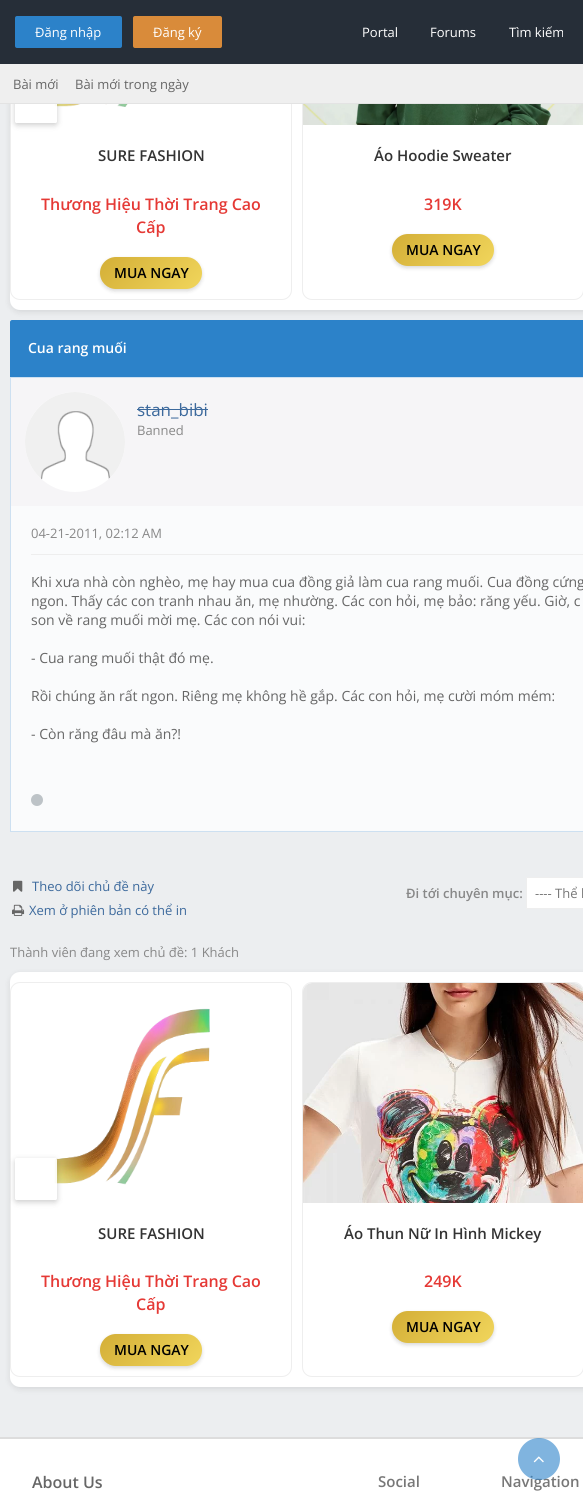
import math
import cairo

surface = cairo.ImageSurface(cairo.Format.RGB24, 583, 1497)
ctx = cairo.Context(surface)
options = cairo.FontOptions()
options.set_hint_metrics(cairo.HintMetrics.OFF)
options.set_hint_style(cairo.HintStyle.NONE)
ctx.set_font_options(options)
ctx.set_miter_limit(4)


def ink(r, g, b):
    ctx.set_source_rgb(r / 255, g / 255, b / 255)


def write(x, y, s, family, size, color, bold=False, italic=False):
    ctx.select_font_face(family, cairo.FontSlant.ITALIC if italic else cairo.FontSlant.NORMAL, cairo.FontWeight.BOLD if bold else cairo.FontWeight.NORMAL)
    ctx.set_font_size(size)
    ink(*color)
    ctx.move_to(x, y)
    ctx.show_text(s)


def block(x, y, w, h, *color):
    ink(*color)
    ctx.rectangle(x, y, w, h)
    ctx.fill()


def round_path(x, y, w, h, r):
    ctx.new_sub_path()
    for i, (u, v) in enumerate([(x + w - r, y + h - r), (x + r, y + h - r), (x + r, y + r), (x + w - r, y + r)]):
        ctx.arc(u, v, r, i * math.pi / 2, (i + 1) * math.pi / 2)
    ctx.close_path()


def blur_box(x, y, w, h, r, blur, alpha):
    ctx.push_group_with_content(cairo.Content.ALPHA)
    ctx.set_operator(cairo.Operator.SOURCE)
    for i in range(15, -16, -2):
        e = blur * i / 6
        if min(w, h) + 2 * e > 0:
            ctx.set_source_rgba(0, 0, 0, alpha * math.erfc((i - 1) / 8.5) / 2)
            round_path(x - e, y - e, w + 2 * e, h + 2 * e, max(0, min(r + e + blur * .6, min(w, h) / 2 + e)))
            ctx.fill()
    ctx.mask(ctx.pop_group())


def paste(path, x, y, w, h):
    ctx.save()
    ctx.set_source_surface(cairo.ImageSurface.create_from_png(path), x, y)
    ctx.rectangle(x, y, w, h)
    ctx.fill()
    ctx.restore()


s1 = dict(family="Open Sans", size=13, color=(255, 255, 255))
s2 = dict(family="Open Sans", size=13, color=(102, 102, 102))
s3 = dict(family="Open Sans SemiBold", size=15, color=(51, 51, 51))
s4 = dict(family="Open Sans SemiBold", size=16, color=(229, 57, 53))
s5 = dict(family="Open Sans SemiBold", size=14, color=(0, 0, 0))
s6 = dict(family="Open Sans SemiBold", size=14, color=(255, 255, 255))
s7 = dict(family="Open Sans", size=17, color=(60, 105, 156))
s8 = dict(family="Open Sans", size=13, color=(136, 136, 136))
s9 = dict(family="Open Sans", size=14, color=(102, 102, 102))
s10 = dict(family="Open Sans", size=13, color=(60, 105, 156))
s11 = dict(family="Open Sans SemiBold", size=13, color=(136, 136, 136))
s12 = dict(family="Open Sans", size=13, color=(119, 119, 119))
s13 = dict(family="Open Sans SemiBold", size=15, color=(119, 119, 119))
s14 = dict(family="Open Sans SemiBold", size=16, color=(102, 102, 102))

ink(236, 238, 240)
ctx.paint()
ink(44, 130, 201)
ctx.new_path()
ctx.move_to(12, 320)
ctx.line_to(583, 320)
ctx.curve_to(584, 320, 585, 321, 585, 322)
ctx.line_to(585, 377)
ctx.line_to(10, 377)
ctx.line_to(10, 322)
ctx.curve_to(10, 321, 11, 320, 12, 320)
ctx.close_path()
ctx.fill()
ink(0, 0, 0)
blur_box(10, -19, 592, 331, 10, 3, 0.1)
ink(255, 255, 255)
round_path(10, -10, 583, 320, 10)
ctx.fill()
round_path(10.5, -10.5, 281, 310, 9.5)
ink(238, 238, 238)
ctx.set_line_width(1)
ctx.stroke()
round_path(302.5, -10.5, 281, 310, 9.5)
ctx.stroke()
block(0, 0, 583, 64, 38, 46, 56)
ink(44, 130, 201)
round_path(15, 16, 107, 32, 2)
ctx.fill()
write(35, 37, "Đăng nhập", **s1)
ink(217, 139, 58)
round_path(133, 16, 89, 32, 2)
ctx.fill()
write(153, 37, "Đăng ký", **s1)
write(362, 37, "Portal", **s1)
write(430, 37, "Forums", **s1)
write(509, 37, "Tìm kiếm", **s1)
paste("pic1.png", 54, 104, 74, 3)
ctx.save()
ctx.set_fill_rule(cairo.FillRule.EVEN_ODD)
ctx.new_path()
ctx.move_to(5, 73)
ctx.line_to(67, 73)
ctx.line_to(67, 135)
ctx.line_to(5, 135)
ctx.close_path()
ctx.move_to(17, 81)
ctx.line_to(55, 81)
ctx.curve_to(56, 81, 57, 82, 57, 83)
ctx.line_to(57, 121)
ctx.curve_to(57, 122, 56, 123, 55, 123)
ctx.line_to(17, 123)
ctx.curve_to(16, 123, 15, 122, 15, 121)
ctx.line_to(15, 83)
ctx.curve_to(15, 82, 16, 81, 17, 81)
ctx.close_path()
ctx.clip()
ink(0, 0, 0)
blur_box(15, 83, 42, 42, 2, 3, 0.2)
ctx.restore()
ctx.set_source_rgba(1, 1, 1, 0.9)
round_path(15, 81, 42, 42, 2)
ctx.fill()
block(0, 64, 583, 39, 239, 239, 239)
block(0, 103, 583, 1, 227, 227, 227)
write(13, 89, "Bài mới", **s2)
write(75, 89, "Bài mới trong ngày", **s2)
write(98, 161, "SURE FASHION", **s3)
write(41, 210, "Thương Hiệu Thời Trang Cao", **s4)
write(136, 233, "Cấp", **s4)
ink(0, 0, 0)
blur_box(100, 259, 102, 32, 16, 2, 0.15)
gradient = cairo.LinearGradient(118, 240, 185, 307)
gradient.add_color_stop_rgba(0, 0.831, 0.686, 0.216, 1)
gradient.add_color_stop_rgba(1, 0.945, 0.839, 0.361, 1)
ctx.set_source(gradient)
round_path(100, 257, 102, 32, 16)
ctx.fill()
write(114, 278, "MUA NGAY", **s5)
paste("pic2.png", 303, 104, 280, 21)
write(374, 161, "Áo Hoodie Sweater", **s3)
write(424, 210, "319K", **s4)
ink(0, 0, 0)
blur_box(392, 236, 102, 32, 16, 2, 0.15)
gradient = cairo.LinearGradient(410, 217, 477, 284)
gradient.add_color_stop_rgba(0, 0.831, 0.686, 0.216, 1)
gradient.add_color_stop_rgba(1, 0.945, 0.839, 0.361, 1)
ctx.set_source(gradient)
round_path(392, 234, 102, 32, 16)
ctx.fill()
write(406, 255, "MUA NGAY", **s5)
write(28, 353, "Cua rang muối", **s6)
block(11, 506, 572, 325, 250, 251, 252)
ctx.rectangle(10.5, 377.5, 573, 454)
ink(205, 224, 241)
ctx.stroke()
block(11, 378, 572, 128, 246, 245, 247)
ink(255, 255, 255)
ctx.arc(75, 442, 50, 0, 2 * math.pi)
ctx.fill()
paste("pic3.png", 25, 392, 100, 88)
write(137, 416, "stan_bibi", **s7)
block(137, 409, 71, 1, 60, 105, 156)
write(137, 435, "Banned", **s8)
block(31, 554, 552, 1, 238, 238, 238)
write(31, 538, "04-21-2011, 02:12 AM", **s8)
write(31, 587, "Khi xưa nhà còn nghèo, mẹ hay mua cua đồng giả làm cua rang muối. Cua đồng cứng", **s9)
write(31, 606, "ngon. Thấy các con tranh nhau ăn, mẹ nhường. Các con hỏi, mẹ bảo: răng yếu. Giờ, c", **s9)
write(31, 625, "son về rang muối mời mẹ. Các con nói vui:", **s9)
write(31, 663, "- Cua rang muối thật đó mẹ.", **s9)
write(31, 701, "Rồi chúng ăn rất ngon. Riêng mẹ không hề gắp. Các con hỏi, mẹ cười móm mém:", **s9)
write(31, 739, "- Còn răng đâu mà ăn?!", **s9)
ink(189, 195, 199)
ctx.new_path()
ctx.arc(37, 800, 6, 0, 2 * math.pi)
ctx.fill()
paste("pic4.png", 13, 880, 10, 12)
write(32, 891, "Theo dõi chủ đề này", **s10)
paste("pic5.png", 12, 904, 13, 12)
write(29, 915, "Xem ở phiên bản có thể in", **s10)
write(406, 898, "Đi tới chuyên mục:", **s11)
ink(255, 255, 255)
round_path(526.5, 877.5, 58, 31, 0.5)
ctx.fill_preserve()
ink(238, 238, 238)
ctx.stroke()
write(535, 898, "---- Thể l", **s12)
write(10, 957, "Thành viên đang xem chủ đề: 1 Khách", **s8)
ink(0, 0, 0)
blur_box(10, 974, 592, 415, 10, 3, 0.1)
ink(255, 255, 255)
round_path(10, 972, 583, 415, 10)
ctx.fill()
round_path(10.5, 982.5, 281, 394, 9.5)
ink(238, 238, 238)
ctx.stroke()
paste("pic6.png", 54, 1008, 156, 177)
ctx.save()
ctx.set_fill_rule(cairo.FillRule.EVEN_ODD)
ctx.new_path()
ctx.move_to(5, 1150)
ctx.line_to(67, 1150)
ctx.line_to(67, 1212)
ctx.line_to(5, 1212)
ctx.close_path()
ctx.move_to(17, 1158)
ctx.line_to(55, 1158)
ctx.curve_to(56, 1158, 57, 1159, 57, 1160)
ctx.line_to(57, 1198)
ctx.curve_to(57, 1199, 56, 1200, 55, 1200)
ctx.line_to(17, 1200)
ctx.curve_to(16, 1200, 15, 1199, 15, 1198)
ctx.line_to(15, 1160)
ctx.curve_to(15, 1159, 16, 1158, 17, 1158)
ctx.close_path()
ctx.clip()
ink(0, 0, 0)
blur_box(15, 1160, 42, 42, 2, 3, 0.2)
ctx.restore()
ctx.set_source_rgba(1, 1, 1, 0.9)
round_path(15, 1158, 42, 42, 2)
ctx.fill()
write(98, 1239, "SURE FASHION", **s3)
write(41, 1287, "Thương Hiệu Thời Trang Cao", **s4)
write(136, 1310, "Cấp", **s4)
ink(0, 0, 0)
blur_box(100, 1336, 102, 32, 16, 2, 0.15)
gradient = cairo.LinearGradient(118, 1317, 185, 1384)
gradient.add_color_stop_rgba(0, 0.831, 0.686, 0.216, 1)
gradient.add_color_stop_rgba(1, 0.945, 0.839, 0.361, 1)
ctx.set_source(gradient)
round_path(100, 1334, 102, 32, 16)
ctx.fill()
write(114, 1355, "MUA NGAY", **s5)
round_path(302.5, 982.5, 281, 394, 9.5)
ink(238, 238, 238)
ctx.stroke()
paste("pic7.png", 303, 983, 280, 220)
write(344, 1239, "Áo Thun Nữ In Hình Mickey", **s3)
write(424, 1287, "249K", **s4)
ink(0, 0, 0)
blur_box(392, 1313, 102, 32, 16, 2, 0.15)
gradient = cairo.LinearGradient(410, 1294, 477, 1361)
gradient.add_color_stop_rgba(0, 0.831, 0.686, 0.216, 1)
gradient.add_color_stop_rgba(1, 0.945, 0.839, 0.361, 1)
ctx.set_source(gradient)
round_path(392, 1311, 102, 32, 16)
ctx.fill()
write(406, 1332, "MUA NGAY", **s5)
block(0, 1439, 583, 58, 255, 255, 255)
block(0, 1437, 583, 2, 221, 221, 221)
write(501, 1487, "Navigation", **s13)
ctx.set_source_rgba(0.173, 0.51, 0.788, 0.6)
ctx.new_path()
ctx.arc(539, 1459, 21, 0, 2 * math.pi)
ctx.fill()
paste("pic8.png", 533, 1456, 11, 7)
write(32, 1488, "About Us", **s14)
write(378, 1487, "Social", **s13)
surface.write_to_png("screenshot.png")
